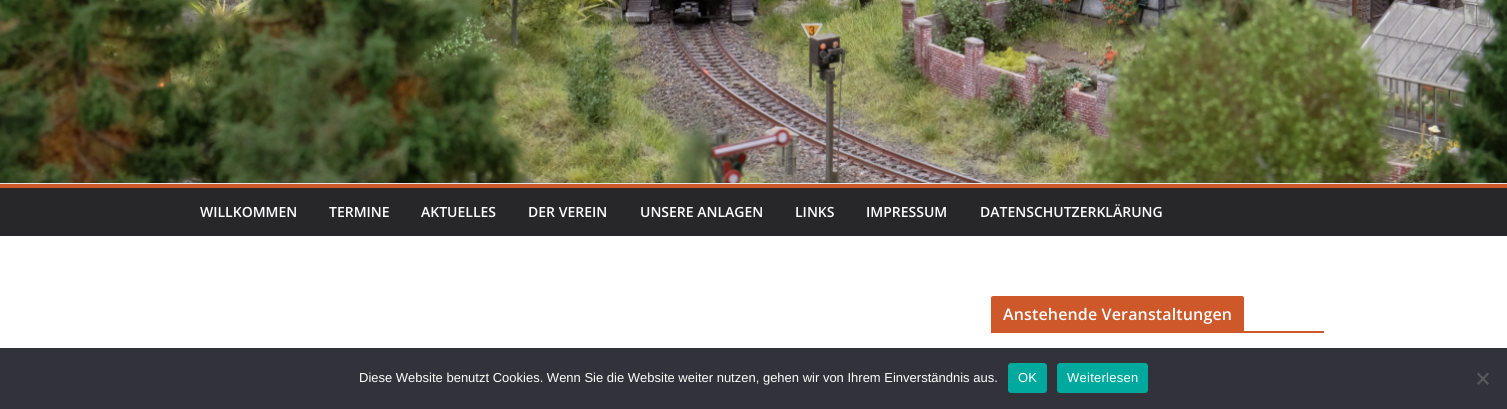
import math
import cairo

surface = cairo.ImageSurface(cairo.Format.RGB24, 1507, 409)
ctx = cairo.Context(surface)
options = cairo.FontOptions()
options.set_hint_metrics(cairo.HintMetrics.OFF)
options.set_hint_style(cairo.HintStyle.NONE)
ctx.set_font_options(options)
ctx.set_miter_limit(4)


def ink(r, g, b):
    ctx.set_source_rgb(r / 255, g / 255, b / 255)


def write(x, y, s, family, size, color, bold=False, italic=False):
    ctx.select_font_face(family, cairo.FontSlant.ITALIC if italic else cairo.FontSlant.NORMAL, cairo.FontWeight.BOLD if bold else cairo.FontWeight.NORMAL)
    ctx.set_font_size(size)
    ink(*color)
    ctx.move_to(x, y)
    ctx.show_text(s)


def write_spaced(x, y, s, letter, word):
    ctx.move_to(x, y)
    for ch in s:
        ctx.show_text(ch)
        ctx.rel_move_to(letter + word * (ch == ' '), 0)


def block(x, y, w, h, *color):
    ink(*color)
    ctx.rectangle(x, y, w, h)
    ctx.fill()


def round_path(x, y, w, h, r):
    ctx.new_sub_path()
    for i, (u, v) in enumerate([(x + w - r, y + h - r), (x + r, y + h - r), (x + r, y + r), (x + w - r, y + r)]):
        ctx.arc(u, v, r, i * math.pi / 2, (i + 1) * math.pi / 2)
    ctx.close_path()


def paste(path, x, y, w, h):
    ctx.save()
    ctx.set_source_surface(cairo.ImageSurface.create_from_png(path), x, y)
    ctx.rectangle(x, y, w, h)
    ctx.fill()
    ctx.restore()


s1 = dict(family="Open Sans SemiBold", size=14, color=(255, 255, 255))
s2 = dict(family="Liberation Sans", size=13, color=(255, 255, 255))

ink(255, 255, 255)
ctx.paint()
paste("pic1.png", 0, 0, 1507, 183)
block(0, 183, 1507, 1, 228, 228, 231)
block(0, 188, 1507, 48, 39, 39, 42)
block(0, 184, 1507, 4, 206, 88, 41)
write(200, 217, "WILLKOMMEN", **s1)
write(329, 217, "TERMINE", **s1)
write(421, 217, "AKTUELLES", **s1)
write(528, 217, "DER VEREIN", **s1)
write(640, 217, "UNSERE ANLAGEN", **s1)
write(795, 217, "LINKS", **s1)
write(866, 217, "IMPRESSUM", **s1)
write(980, 217, "DATENSCHUTZERKLÄRUNG", **s1)
block(991, 331, 333, 2, 206, 88, 41)
ctx.new_path()
ctx.move_to(993, 296)
ctx.line_to(1242, 296)
ctx.curve_to(1243, 296, 1244, 297, 1244, 298)
ctx.line_to(1244, 331)
ctx.line_to(991, 331)
ctx.line_to(991, 298)
ctx.curve_to(991, 297, 992, 296, 993, 296)
ctx.close_path()
ctx.fill()
ctx.set_font_size(16)
ink(255, 255, 255)
write_spaced(1003, 320, "Anstehende Veranstaltungen", 0.15, 0)
block(0, 348, 1507, 61, 50, 50, 58)
write(359, 382, "Diese Website benutzt Cookies. Wenn Sie die Website weiter nutzen, gehen wir von Ihrem Einverständnis aus.", **s2)
ink(0, 169, 157)
round_path(1008, 363, 39, 30, 3)
ctx.fill()
ink(255, 255, 255)
write_spaced(1018, 382, "OK", 0.25, 0)
ink(0, 169, 157)
round_path(1057, 363, 91, 30, 3)
ctx.fill()
ink(255, 255, 255)
write_spaced(1067, 382, "Weiterlesen", 0.25, 0)
ink(89, 89, 93)
ctx.new_path()
ctx.move_to(1487.5, 372.5)
ctx.line_to(1489, 374)
ctx.line_to(1478.5, 385)
ctx.line_to(1477, 383.5)
ctx.close_path()
ctx.fill()
ctx.new_path()
ctx.move_to(1477, 374)
ctx.line_to(1478.5, 372.5)
ctx.line_to(1489, 383.5)
ctx.line_to(1487.5, 385)
ctx.close_path()
ctx.fill()
surface.write_to_png("screenshot.png")
